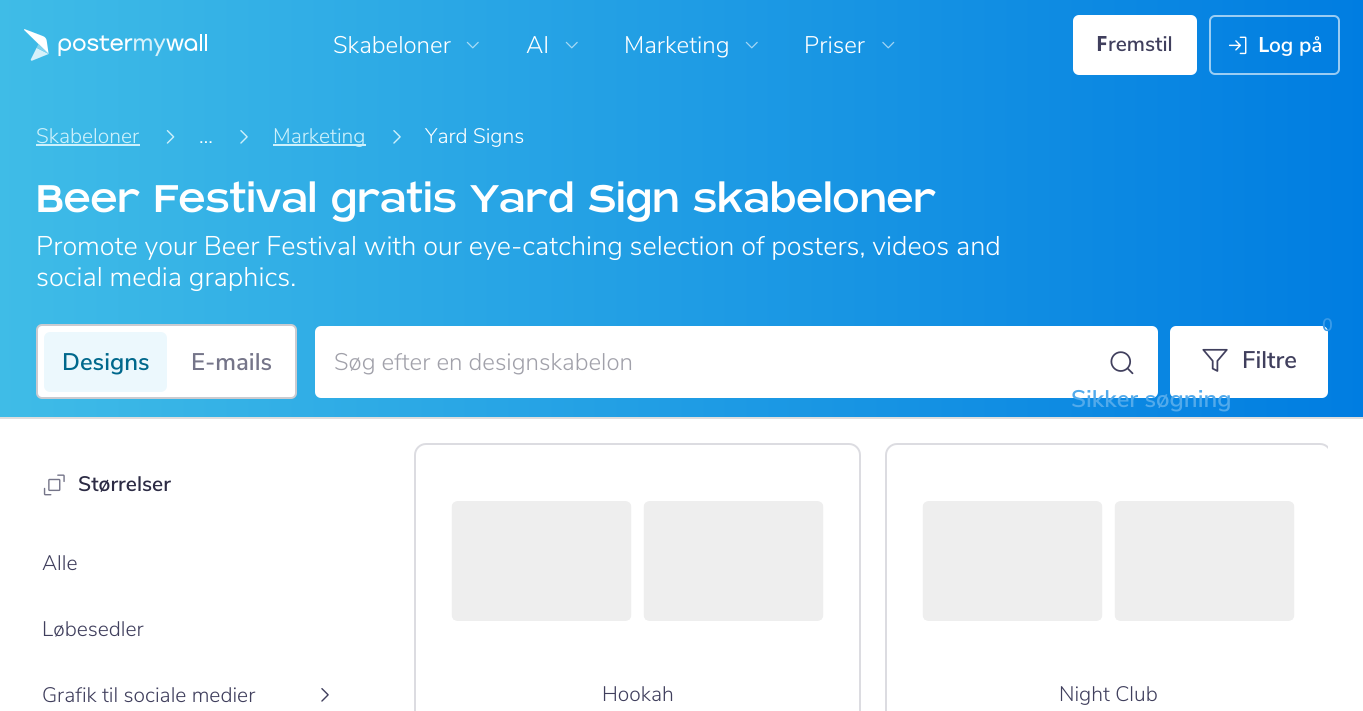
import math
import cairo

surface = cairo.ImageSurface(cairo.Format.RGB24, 1363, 711)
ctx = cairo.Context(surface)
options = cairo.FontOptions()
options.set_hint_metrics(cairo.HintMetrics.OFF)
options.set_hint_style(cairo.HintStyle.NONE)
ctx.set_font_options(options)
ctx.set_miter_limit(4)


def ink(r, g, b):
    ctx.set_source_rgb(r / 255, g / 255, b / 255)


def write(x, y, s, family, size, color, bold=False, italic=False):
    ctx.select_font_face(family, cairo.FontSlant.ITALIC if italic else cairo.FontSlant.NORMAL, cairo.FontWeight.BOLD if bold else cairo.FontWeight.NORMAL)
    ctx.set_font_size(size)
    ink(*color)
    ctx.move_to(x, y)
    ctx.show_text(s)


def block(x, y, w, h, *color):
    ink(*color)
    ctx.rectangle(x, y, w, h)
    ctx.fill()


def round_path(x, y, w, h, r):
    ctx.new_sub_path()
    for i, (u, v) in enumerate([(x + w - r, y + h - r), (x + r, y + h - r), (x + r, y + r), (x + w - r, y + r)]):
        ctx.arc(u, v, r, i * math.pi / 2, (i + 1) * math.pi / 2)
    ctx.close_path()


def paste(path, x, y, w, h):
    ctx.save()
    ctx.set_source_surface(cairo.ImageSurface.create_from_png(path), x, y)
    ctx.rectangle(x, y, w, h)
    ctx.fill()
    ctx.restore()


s1 = dict(family="Nunito Sans Light", size=24, color=(255, 255, 255))
s2 = dict(family="Noto Sans", size=21, color=(64, 63, 93), bold=True)
s3 = dict(family="Nunito Sans SemiBold", size=21, color=(64, 63, 93))
s4 = dict(family="Noto Sans SemiBold", size=21, color=(255, 255, 255))
s5 = dict(family="Nunito Sans SemiBold", size=21, color=(255, 255, 255))
s6 = dict(family="Nunito Sans Light", size=21, color=(205, 240, 251))
s7 = dict(family="Nunito Sans Light", size=21, color=(255, 255, 255))
s8 = dict(family="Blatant", size=48, color=(255, 255, 255))
s9 = dict(family="Nunito Sans Light", size=27, color=(255, 255, 255))
s10 = dict(family="Nunito Sans SemiBold", size=24, color=(0, 104, 140))
s11 = dict(family="Nunito Sans SemiBold", size=24, color=(117, 117, 137))
s12 = dict(family="Nunito Sans Light", size=24, color=(161, 161, 170))
s13 = dict(family="Nunito Sans SemiBold", size=18, color=(58, 155, 232))
s14 = dict(family="Nunito Sans SemiBold", size=24, color=(64, 63, 93))
s15 = dict(family="Nunito Sans SemiBold", size=24, color=(82, 170, 235))
s16 = dict(family="Nunito Sans SemiBold", size=21, color=(44, 43, 68))
s17 = dict(family="Nunito Sans Light", size=21, color=(64, 63, 93))

ink(255, 255, 255)
ctx.paint()
gradient = cairo.LinearGradient(0, 45, 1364, 45)
gradient.add_color_stop_rgba(0, 0.247, 0.737, 0.906, 1)
gradient.add_color_stop_rgba(1, 0, 0.49, 0.882, 1)
ctx.set_source(gradient)
ctx.rectangle(0, 0, 1363, 90)
ctx.fill()
paste("pic1.png", 24, 29, 183, 32)
write(333, 53, "Skabeloner", **s1)
paste("pic2.png", 466, 41, 13, 8)
write(526, 53, "AI", **s1)
paste("pic3.png", 565, 41, 13, 8)
write(624, 53, "Marketing", **s1)
paste("pic4.png", 745, 41, 13, 8)
write(804, 53, "Priser", **s1)
paste("pic5.png", 882, 41, 13, 8)
round_path(1073, 15, 124, 60, 6)
ctx.fill()
write(1096, 51, "F", **s2)
write(1108, 51, "remstil", **s3)
round_path(1210, 16, 129, 58, 5)
ctx.set_source_rgba(1, 1, 1, 0.6)
ctx.stroke()
paste("pic6.png", 1228, 36, 19, 19)
write(1258, 52, "L", **s4)
write(1269, 52, "og på", **s5)
gradient = cairo.LinearGradient(0, 254, 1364, 253)
gradient.add_color_stop_rgba(0, 0.247, 0.737, 0.906, 1)
gradient.add_color_stop_rgba(1, 0, 0.49, 0.882, 1)
ctx.set_source(gradient)
ctx.rectangle(0, 90, 1363, 327)
ctx.fill()
block(0, 417, 1363, 2, 222, 222, 222)
write(36, 143, "Skabeloner", **s6)
block(36, 144, 104, 2, 205, 240, 251)
paste("pic7.png", 166, 130, 9, 14)
write(199, 143, "…", **s7)
paste("pic8.png", 240, 130, 8, 14)
block(273, 144, 93, 2, 205, 240, 251)
write(273, 143, "Marketing", **s6)
paste("pic9.png", 393, 130, 8, 14)
write(425, 143, "Yard Signs", **s7)
write(36, 212, "Beer Festival gratis Yard Sign skabeloner", **s8)
write(36, 255, "Promote your Beer Festival with our eye-catching selection of posters, videos and", **s9)
write(36, 286, "social media graphics.", **s9)
round_path(37, 325, 259, 73, 5)
ctx.fill_preserve()
ink(203, 203, 208)
ctx.stroke()
ink(236, 248, 253)
round_path(44, 332, 123, 60, 6)
ctx.fill()
write(62, 370, "Designs", **s10)
write(191, 370, "E-mails", **s11)
ink(255, 255, 255)
round_path(315, 326, 843, 72, 6)
ctx.fill()
write(334, 370, "Søg efter en designskabelon", **s12)
paste("pic10.png", 1110, 351, 24, 24)
ink(255, 255, 255)
round_path(1170, 326, 158, 72, 6)
ctx.fill()
write(1322, 331, "0", **s13)
paste("pic11.png", 1202, 348, 26, 24)
write(1242, 368, "Filtre", **s14)
write(1071, 407, "Sikker søgning", **s15)
paste("pic12.png", 43, 474, 22, 22)
write(78, 491, "Størrelser", **s16)
write(42, 570, "Alle", **s17)
write(42, 636, "Løbesedler", **s17)
write(42, 702, "Grafik til sociale medier", **s17)
paste("pic13.png", 321, 688, 8, 14)
round_path(415, 444, 445, 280, 11)
ink(220, 220, 225)
ctx.stroke()
paste("pic14.png", 451, 501, 181, 120)
paste("pic14.png", 643, 501, 181, 120)
write(602, 701, "Hookah", **s17)
ctx.save()
ctx.rectangle(414, 419, 914, 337)
ctx.clip()
round_path(886, 444, 445, 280, 11)
ink(220, 220, 225)
ctx.stroke()
ctx.restore()
paste("pic14.png", 922, 501, 181, 120)
paste("pic14.png", 1114, 501, 181, 120)
write(1059, 701, "Night Club", **s17)
surface.write_to_png("screenshot.png")
